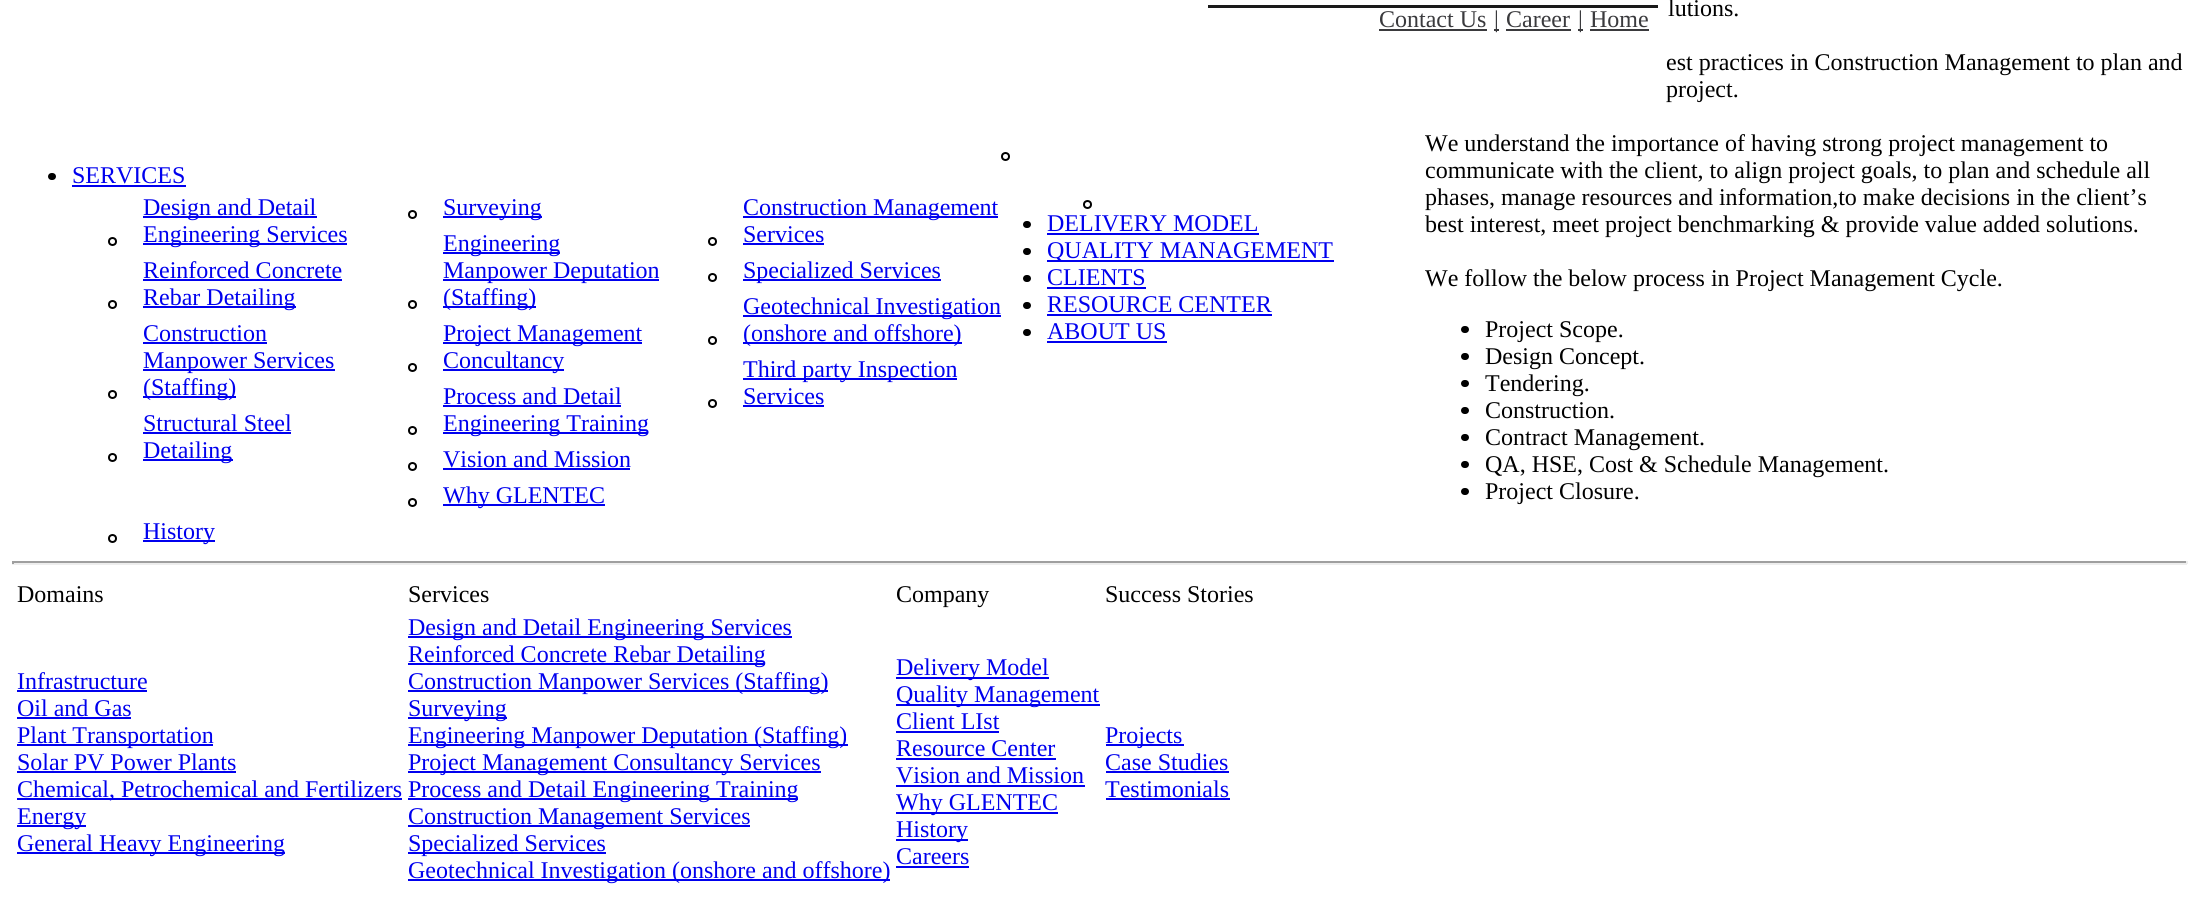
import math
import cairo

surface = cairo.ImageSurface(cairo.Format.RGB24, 2198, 898)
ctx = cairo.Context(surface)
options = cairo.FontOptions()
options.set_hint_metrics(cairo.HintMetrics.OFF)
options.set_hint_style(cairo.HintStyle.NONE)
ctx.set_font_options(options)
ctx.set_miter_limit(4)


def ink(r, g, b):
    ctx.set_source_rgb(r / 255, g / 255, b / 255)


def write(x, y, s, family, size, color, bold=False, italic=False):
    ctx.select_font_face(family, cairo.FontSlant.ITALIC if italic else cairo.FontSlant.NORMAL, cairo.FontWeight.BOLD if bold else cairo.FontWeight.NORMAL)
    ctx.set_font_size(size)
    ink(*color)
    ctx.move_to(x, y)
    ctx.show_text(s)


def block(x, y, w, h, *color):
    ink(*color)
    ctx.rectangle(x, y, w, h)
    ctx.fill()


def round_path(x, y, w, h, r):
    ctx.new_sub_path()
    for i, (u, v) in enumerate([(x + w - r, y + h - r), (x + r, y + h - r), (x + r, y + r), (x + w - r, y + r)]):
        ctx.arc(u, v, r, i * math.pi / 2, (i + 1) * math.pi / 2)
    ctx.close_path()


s1 = dict(family="Liberation Serif", size=24, color=(0, 0, 238))
s2 = dict(family="Liberation Serif", size=24, color=(0, 0, 0))
s3 = dict(family="Liberation Serif", size=24, color=(58, 58, 61))

ink(255, 255, 255)
ctx.paint()
ctx.arc(1005.5, 156.5, 3.5, 0, 2 * math.pi)
ink(0, 0, 0)
ctx.stroke()
round_path(48, 173, 8, 7, 3.5)
ctx.fill()
write(72, 183, "SERVICES", **s1)
block(72, 185, 114, 2, 0, 0, 238)
ctx.new_path()
ctx.arc(112.5, 241.5, 3.5, 0, 2 * math.pi)
ink(0, 0, 0)
ctx.stroke()
block(143, 216, 174, 2, 0, 0, 238)
write(143, 215, "Design and Detail", **s1)
block(143, 243, 204, 2, 0, 0, 238)
write(143, 242, "Engineering Services", **s1)
ctx.new_path()
ctx.arc(112.5, 304.5, 3.5, 0, 2 * math.pi)
ink(0, 0, 0)
ctx.stroke()
write(143, 278, "Reinforced Concrete", **s1)
block(143, 279, 199, 2, 0, 0, 238)
block(143, 306, 153, 2, 0, 0, 238)
write(143, 305, "Rebar Detailing", **s1)
ctx.new_path()
ctx.arc(112.5, 394.5, 3.5, 0, 2 * math.pi)
ink(0, 0, 0)
ctx.stroke()
write(143, 341, "Construction", **s1)
block(143, 342, 124, 2, 0, 0, 238)
block(143, 369, 192, 2, 0, 0, 238)
write(143, 368, "Manpower Services", **s1)
block(143, 396, 93, 2, 0, 0, 238)
write(143, 395, "(Staffing)", **s1)
ctx.new_path()
ctx.arc(112.5, 457.5, 3.5, 0, 2 * math.pi)
ink(0, 0, 0)
ctx.stroke()
write(143, 431, "Structural Steel", **s1)
block(143, 432, 148, 2, 0, 0, 238)
block(143, 459, 90, 2, 0, 0, 238)
write(143, 458, "Detailing", **s1)
ctx.new_path()
ctx.arc(412.5, 214.5, 3.5, 0, 2 * math.pi)
ink(0, 0, 0)
ctx.stroke()
block(443, 216, 99, 2, 0, 0, 238)
write(443, 215, "Surveying", **s1)
ctx.new_path()
ctx.arc(412.5, 304.5, 3.5, 0, 2 * math.pi)
ink(0, 0, 0)
ctx.stroke()
block(443, 252, 117, 2, 0, 0, 238)
write(443, 251, "Engineering", **s1)
block(443, 279, 216, 2, 0, 0, 238)
write(443, 278, "Manpower Deputation", **s1)
block(443, 306, 93, 2, 0, 0, 238)
write(443, 305, "(Staffing)", **s1)
ctx.new_path()
ctx.arc(412.5, 367.5, 3.5, 0, 2 * math.pi)
ink(0, 0, 0)
ctx.stroke()
block(443, 342, 199, 2, 0, 0, 238)
write(443, 341, "Project Management", **s1)
block(443, 369, 121, 2, 0, 0, 238)
write(443, 368, "Concultancy", **s1)
ctx.new_path()
ctx.arc(412.5, 430.5, 3.5, 0, 2 * math.pi)
ink(0, 0, 0)
ctx.stroke()
write(443, 404, "Process and Detail", **s1)
block(443, 405, 178, 2, 0, 0, 238)
block(443, 432, 205, 2, 0, 0, 238)
write(443, 431, "Engineering Training", **s1)
ctx.new_path()
ctx.arc(712.5, 241.5, 3.5, 0, 2 * math.pi)
ink(0, 0, 0)
ctx.stroke()
block(743, 216, 255, 2, 0, 0, 238)
write(743, 215, "Construction Management", **s1)
write(743, 242, "Services", **s1)
block(743, 243, 81, 2, 0, 0, 238)
ctx.new_path()
ctx.arc(712.5, 277.5, 3.5, 0, 2 * math.pi)
ink(0, 0, 0)
ctx.stroke()
block(743, 279, 198, 2, 0, 0, 238)
write(743, 278, "Specialized Services", **s1)
ctx.new_path()
ctx.arc(712.5, 340.5, 3.5, 0, 2 * math.pi)
ink(0, 0, 0)
ctx.stroke()
block(743, 315, 258, 2, 0, 0, 238)
write(743, 314, "Geotechnical Investigation", **s1)
block(743, 342, 219, 2, 0, 0, 238)
write(743, 341, "(onshore and offshore)", **s1)
ctx.new_path()
ctx.arc(712.5, 403.5, 3.5, 0, 2 * math.pi)
ink(0, 0, 0)
ctx.stroke()
block(743, 378, 214, 2, 0, 0, 238)
write(743, 377, "Third party Inspection", **s1)
write(743, 404, "Services", **s1)
block(743, 405, 81, 2, 0, 0, 238)
ctx.new_path()
ctx.arc(1087.5, 204.5, 3.5, 0, 2 * math.pi)
ink(0, 0, 0)
ctx.stroke()
round_path(1023, 221, 8, 7, 3.5)
ctx.fill()
write(1047, 231, "DELIVERY MODEL", **s1)
block(1047, 233, 212, 2, 0, 0, 238)
ink(0, 0, 0)
round_path(1023, 248, 8, 7, 3.5)
ctx.fill()
block(1047, 260, 287, 2, 0, 0, 238)
write(1047, 258, "QUALITY MANAGEMENT", **s1)
ink(0, 0, 0)
round_path(1023, 275, 8, 7, 3.5)
ctx.fill()
write(1047, 285, "CLIENTS", **s1)
block(1047, 287, 99, 2, 0, 0, 238)
ink(0, 0, 0)
round_path(1023, 302, 8, 7, 3.5)
ctx.fill()
write(1047, 312, "RESOURCE CENTER", **s1)
block(1047, 314, 225, 2, 0, 0, 238)
ink(0, 0, 0)
round_path(1023, 329, 8, 7, 3.5)
ctx.fill()
write(1047, 339, "ABOUT US", **s1)
block(1047, 341, 120, 2, 0, 0, 238)
ctx.new_path()
ctx.arc(412.5, 466.5, 3.5, 0, 2 * math.pi)
ink(0, 0, 0)
ctx.stroke()
write(443, 467, "Vision and Mission", **s1)
block(443, 468, 187, 2, 0, 0, 238)
ctx.new_path()
ctx.arc(412.5, 502.5, 3.5, 0, 2 * math.pi)
ink(0, 0, 0)
ctx.stroke()
block(443, 504, 162, 2, 0, 0, 238)
write(443, 503, "Why GLENTEC", **s1)
ctx.new_path()
ctx.arc(112.5, 538.5, 3.5, 0, 2 * math.pi)
ink(0, 0, 0)
ctx.stroke()
block(143, 540, 72, 2, 0, 0, 238)
write(143, 539, "History", **s1)
write(1668, 16, "lutions.", **s2)
write(1666, 70, "est practices in Construction Management to plan and", **s2)
write(1666, 97, "project.", **s2)
write(1425, 151, "We understand the importance of having strong project management to", **s2)
write(1425, 178, "communicate with the client, to align project goals, to plan and schedule all", **s2)
write(1425, 205, "phases, manage resources and information,to make decisions in the client’s", **s2)
write(1425, 232, "best interest, meet project benchmarking & provide value added solutions.", **s2)
write(1425, 286, "We follow the below process in Project Management Cycle.", **s2)
round_path(1461, 326, 8, 7, 3.5)
ctx.fill()
write(1485, 337, "Project Scope.", **s2)
round_path(1461, 353, 8, 7, 3.5)
ctx.fill()
write(1485, 364, "Design Concept.", **s2)
round_path(1461, 380, 8, 7, 3.5)
ctx.fill()
write(1485, 391, "Tendering.", **s2)
round_path(1461, 407, 8, 7, 3.5)
ctx.fill()
write(1485, 418, "Construction.", **s2)
round_path(1461, 434, 8, 7, 3.5)
ctx.fill()
write(1485, 445, "Contract Management.", **s2)
round_path(1461, 461, 8, 7, 3.5)
ctx.fill()
write(1485, 472, "QA, HSE, Cost & Schedule Management.", **s2)
round_path(1461, 488, 8, 7, 3.5)
ctx.fill()
write(1485, 499, "Project Closure.", **s2)
block(1208, 5, 450, 3, 26, 26, 26)
write(1379, 27, "Contact Us", **s3)
block(1379, 29, 108, 2, 58, 58, 61)
block(1494, 29, 5, 2, 58, 58, 61)
write(1494, 27, "|", **s3)
write(1506, 27, "Career", **s3)
block(1506, 29, 65, 2, 58, 58, 61)
block(1578, 29, 5, 2, 58, 58, 61)
write(1578, 27, "|", **s3)
write(1590, 27, "Home", **s3)
block(1590, 29, 59, 2, 58, 58, 61)
block(12, 561, 2175, 2, 159, 159, 159)
block(2186, 561, 2, 3, 238, 238, 238)
block(12, 563, 2175, 2, 238, 238, 238)
block(12, 561, 2, 3, 159, 159, 159)
write(17, 602, "Domains", **s2)
write(408, 602, "Services", **s2)
write(896, 602, "Company", **s2)
write(1105, 602, "Success Stories", **s2)
write(17, 689, "Infrastructure", **s1)
block(17, 690, 130, 2, 0, 0, 238)
write(17, 716, "Oil and Gas", **s1)
block(17, 717, 114, 2, 0, 0, 238)
block(17, 744, 196, 2, 0, 0, 238)
write(17, 743, "Plant Transportation", **s1)
write(17, 770, "Solar PV Power Plants", **s1)
block(17, 771, 219, 2, 0, 0, 238)
block(17, 798, 385, 2, 0, 0, 238)
write(17, 797, "Chemical, Petrochemical and Fertilizers", **s1)
block(17, 825, 69, 2, 0, 0, 238)
write(17, 824, "Energy", **s1)
block(17, 852, 268, 2, 0, 0, 238)
write(17, 851, "General Heavy Engineering", **s1)
block(408, 636, 384, 2, 0, 0, 238)
write(408, 635, "Design and Detail Engineering Services", **s1)
block(408, 663, 357, 2, 0, 0, 238)
write(408, 662, "Reinforced Concrete Rebar Detailing", **s1)
block(408, 690, 420, 2, 0, 0, 238)
write(408, 689, "Construction Manpower Services (Staffing)", **s1)
block(408, 717, 99, 2, 0, 0, 238)
write(408, 716, "Surveying", **s1)
block(408, 744, 440, 2, 0, 0, 238)
write(408, 743, "Engineering Manpower Deputation (Staffing)", **s1)
block(408, 771, 413, 2, 0, 0, 238)
write(408, 770, "Project Management Consultancy Services", **s1)
block(408, 798, 390, 2, 0, 0, 238)
write(408, 797, "Process and Detail Engineering Training", **s1)
block(408, 825, 342, 2, 0, 0, 238)
write(408, 824, "Construction Management Services", **s1)
block(408, 852, 198, 2, 0, 0, 238)
write(408, 851, "Specialized Services", **s1)
block(408, 879, 482, 2, 0, 0, 238)
write(408, 878, "Geotechnical Investigation (onshore and offshore)", **s1)
block(896, 677, 153, 2, 0, 0, 238)
write(896, 675, "Delivery Model", **s1)
block(896, 704, 204, 2, 0, 0, 238)
write(896, 702, "Quality Management", **s1)
write(896, 729, "Client LIst", **s1)
block(896, 731, 103, 2, 0, 0, 238)
write(896, 756, "Resource Center", **s1)
block(896, 758, 160, 2, 0, 0, 238)
write(896, 783, "Vision and Mission", **s1)
block(896, 785, 189, 2, 0, 0, 238)
block(896, 812, 162, 2, 0, 0, 238)
write(896, 810, "Why GLENTEC", **s1)
block(896, 839, 72, 2, 0, 0, 238)
write(896, 837, "History", **s1)
write(896, 864, "Careers", **s1)
block(896, 866, 73, 2, 0, 0, 238)
block(1106, 744, 78, 2, 0, 0, 238)
write(1105, 743, "Projects", **s1)
write(1105, 770, "Case Studies", **s1)
block(1106, 771, 123, 2, 0, 0, 238)
write(1105, 797, "Testimonials", **s1)
block(1106, 798, 124, 2, 0, 0, 238)
surface.write_to_png("screenshot.png")
